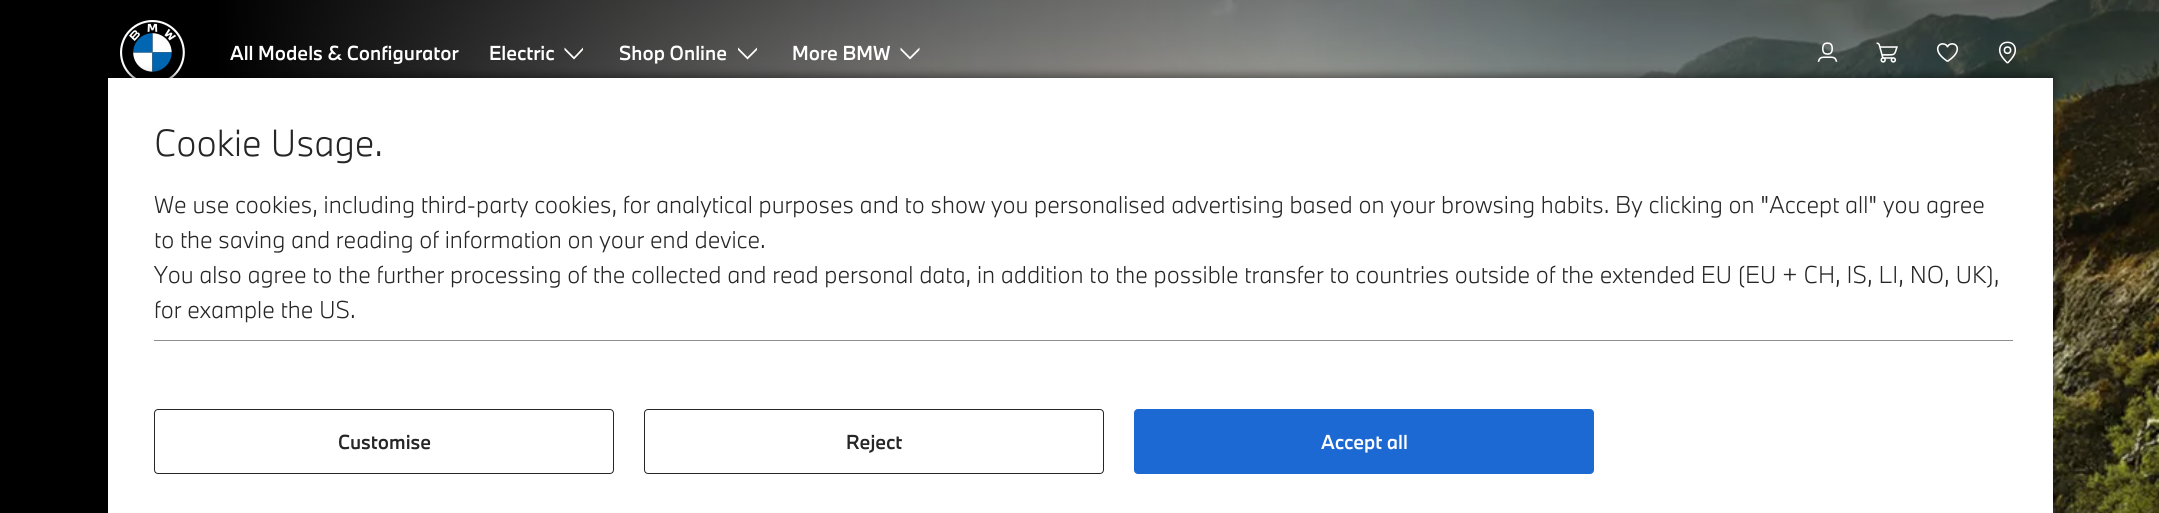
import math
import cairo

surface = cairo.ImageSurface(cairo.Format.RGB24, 2159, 513)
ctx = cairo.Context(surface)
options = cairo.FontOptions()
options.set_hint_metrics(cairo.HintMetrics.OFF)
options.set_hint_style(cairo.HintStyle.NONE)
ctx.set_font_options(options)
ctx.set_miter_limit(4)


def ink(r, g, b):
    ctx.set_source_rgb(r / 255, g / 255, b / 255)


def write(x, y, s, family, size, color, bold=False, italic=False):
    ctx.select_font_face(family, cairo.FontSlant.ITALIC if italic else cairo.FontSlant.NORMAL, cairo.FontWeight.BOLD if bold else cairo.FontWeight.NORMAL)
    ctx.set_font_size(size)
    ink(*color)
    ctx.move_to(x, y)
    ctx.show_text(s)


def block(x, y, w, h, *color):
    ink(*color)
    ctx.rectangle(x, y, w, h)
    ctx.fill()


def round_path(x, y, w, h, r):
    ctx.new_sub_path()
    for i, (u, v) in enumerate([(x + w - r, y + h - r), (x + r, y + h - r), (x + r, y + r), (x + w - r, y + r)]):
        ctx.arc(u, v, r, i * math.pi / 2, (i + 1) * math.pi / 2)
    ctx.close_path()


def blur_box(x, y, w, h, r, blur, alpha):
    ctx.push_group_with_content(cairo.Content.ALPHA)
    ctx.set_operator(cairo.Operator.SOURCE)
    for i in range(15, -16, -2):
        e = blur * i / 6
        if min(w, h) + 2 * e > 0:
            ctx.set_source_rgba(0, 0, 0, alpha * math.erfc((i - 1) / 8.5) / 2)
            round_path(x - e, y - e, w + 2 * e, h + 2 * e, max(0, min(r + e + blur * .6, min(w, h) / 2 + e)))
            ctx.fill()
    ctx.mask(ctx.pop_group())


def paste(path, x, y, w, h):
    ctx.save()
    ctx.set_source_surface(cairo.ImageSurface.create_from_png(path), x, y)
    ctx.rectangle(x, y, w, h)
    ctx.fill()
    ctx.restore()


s1 = dict(family="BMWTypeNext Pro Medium", size=18.75, color=(255, 255, 255))
s2 = dict(family="BMWTypeNext Pro Light", size=35, color=(38, 38, 38))
s3 = dict(family="BMWTypeNext Pro Light", size=22.5, color=(38, 38, 38))
s4 = dict(family="BMWTypeNext Pro Medium", size=18.75, color=(38, 38, 38))

ink(255, 255, 255)
ctx.paint()
paste("pic1.png", 0, 0, 2159, 513)
paste("pic2.png", 120, 20, 65, 58)
write(230, 60, "All Models & Configurator", **s1)
write(489, 60, "Electric", **s1)
ctx.new_path()
ctx.move_to(564.5, 50)
ctx.line_to(564.5, 47.5)
ctx.line_to(574, 57)
ctx.line_to(583, 47.5)
ctx.line_to(583, 50)
ctx.line_to(574, 59.5)
ctx.close_path()
ctx.fill()
write(619, 60, "Shop Online", **s1)
ctx.new_path()
ctx.move_to(738, 50)
ctx.line_to(738, 47.5)
ctx.line_to(747.5, 57)
ctx.line_to(757, 47.5)
ctx.line_to(757, 50)
ctx.line_to(747.5, 59.5)
ctx.close_path()
ctx.fill()
write(792, 60, "More BMW", **s1)
ctx.new_path()
ctx.move_to(900.5, 50)
ctx.line_to(900.5, 47.5)
ctx.line_to(910, 57)
ctx.line_to(919.5, 47.5)
ctx.line_to(919.5, 50)
ctx.line_to(910, 59.5)
ctx.close_path()
ctx.fill()
paste("pic3.png", 1817, 42, 21, 20)
paste("pic4.png", 1876, 42, 22, 21)
paste("pic5.png", 1936, 43, 23, 19)
paste("pic6.png", 1998, 41, 19, 23)
ink(0, 0, 0)
blur_box(108, 76, 1945, 437, 0, 5, 0.5)
block(108, 78, 1945, 435, 255, 255, 255)
write(154, 156, "Cookie Usage.", **s2)
write(154, 213, "We use cookies, including third-party cookies, for analytical purposes and to show you personalised advertising based on your browsing habits. By clicking on \"Accept all\" you agree", **s3)
write(154, 248, "to the saving and reading of information on your end device.", **s3)
write(154, 283, "You also agree to the further processing of the collected and read personal data, in addition to the possible transfer to countries outside of the extended EU (EU + CH, IS, LI, NO, UK),", **s3)
write(154, 318, "for example the US.", **s3)
block(154, 340, 1859, 1, 142, 142, 142)
round_path(154.5, 409.5, 459, 64, 3.5)
ink(38, 38, 38)
ctx.set_line_width(1)
ctx.stroke()
write(338, 449, "Customise", **s4)
round_path(644.5, 409.5, 459, 64, 3.5)
ctx.stroke()
write(846, 449, "Reject", **s4)
ink(28, 105, 212)
round_path(1134.5, 409.5, 459, 64, 3.5)
ctx.fill_preserve()
ctx.stroke()
write(1321, 449, "Accept all", **s1)
surface.write_to_png("screenshot.png")
